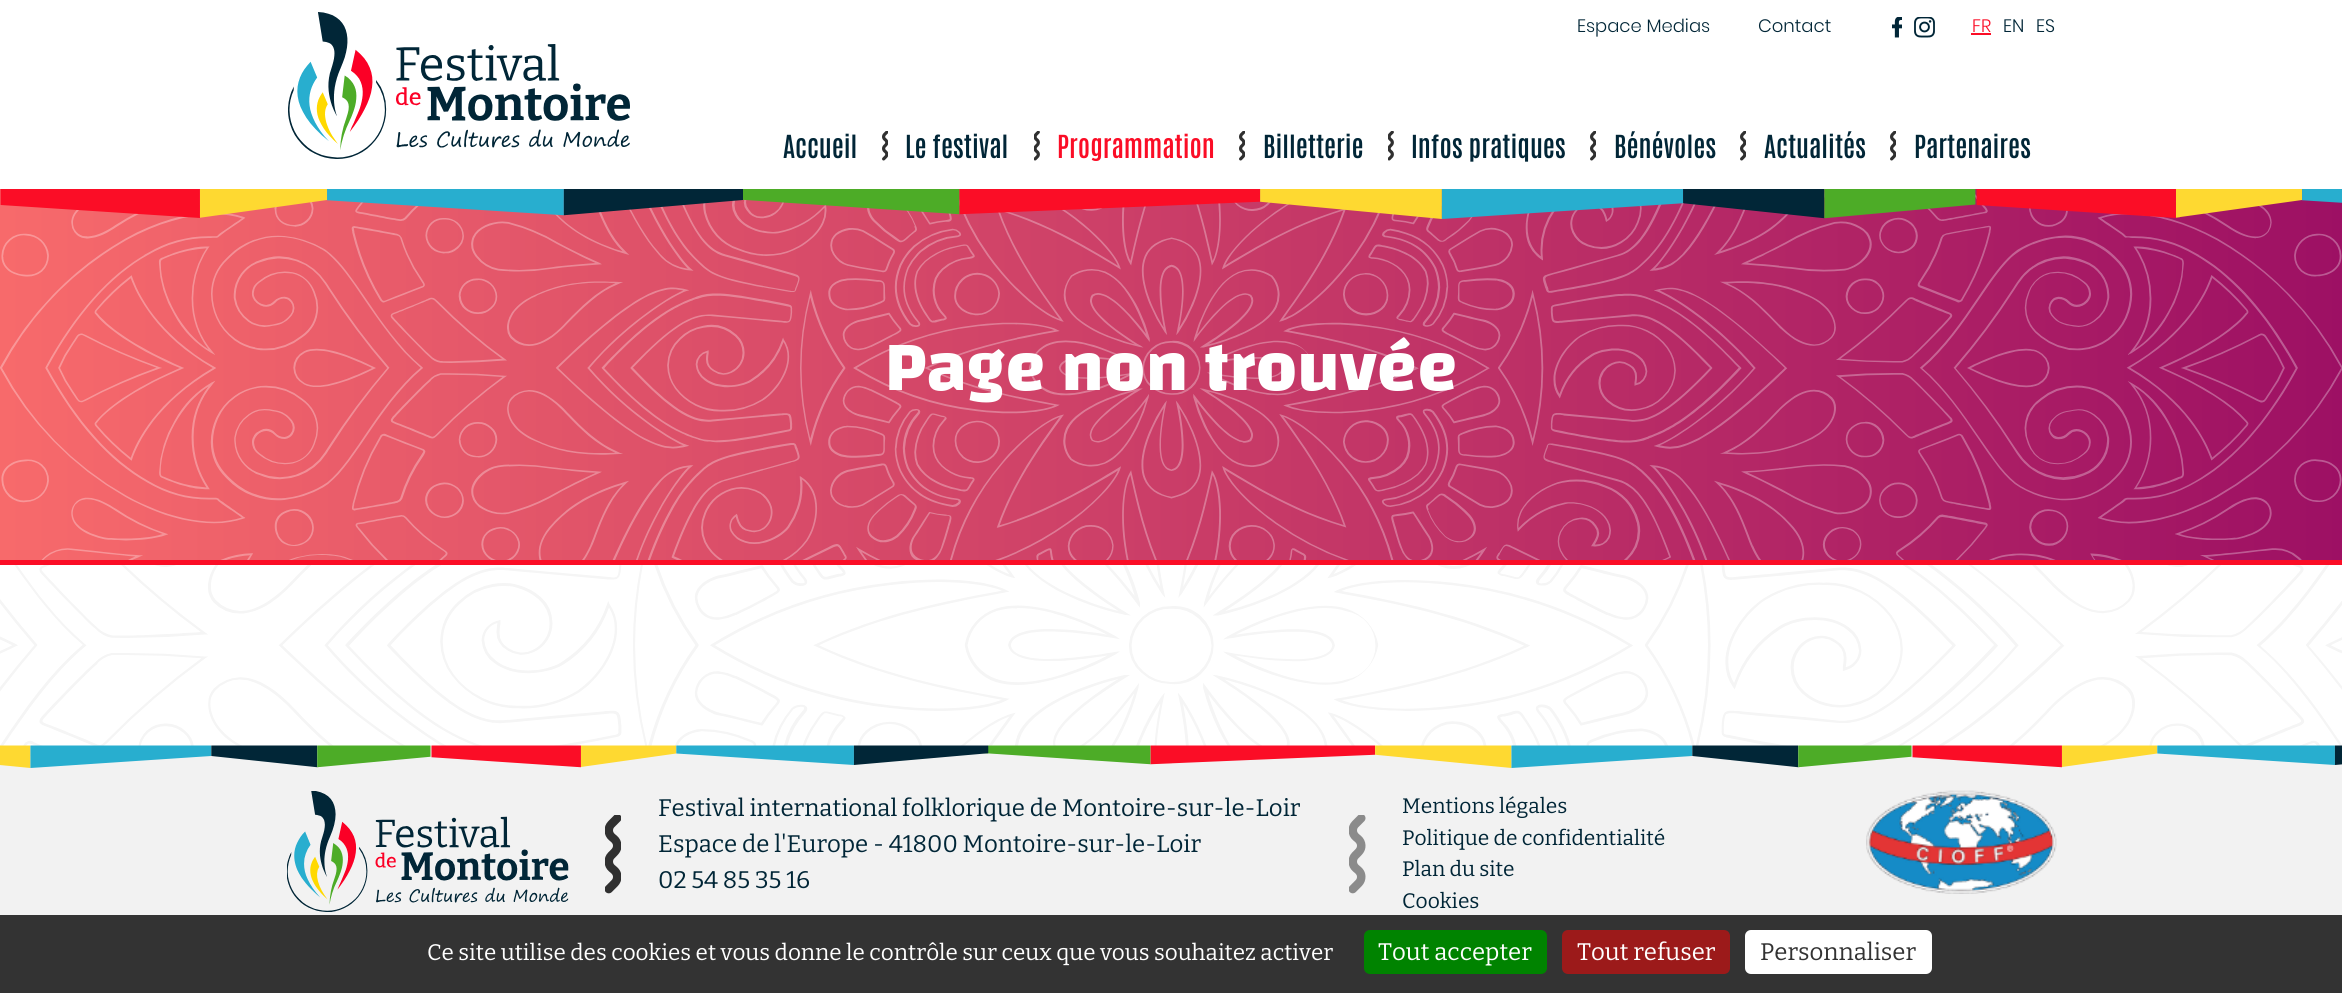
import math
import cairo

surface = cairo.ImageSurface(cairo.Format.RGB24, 2342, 993)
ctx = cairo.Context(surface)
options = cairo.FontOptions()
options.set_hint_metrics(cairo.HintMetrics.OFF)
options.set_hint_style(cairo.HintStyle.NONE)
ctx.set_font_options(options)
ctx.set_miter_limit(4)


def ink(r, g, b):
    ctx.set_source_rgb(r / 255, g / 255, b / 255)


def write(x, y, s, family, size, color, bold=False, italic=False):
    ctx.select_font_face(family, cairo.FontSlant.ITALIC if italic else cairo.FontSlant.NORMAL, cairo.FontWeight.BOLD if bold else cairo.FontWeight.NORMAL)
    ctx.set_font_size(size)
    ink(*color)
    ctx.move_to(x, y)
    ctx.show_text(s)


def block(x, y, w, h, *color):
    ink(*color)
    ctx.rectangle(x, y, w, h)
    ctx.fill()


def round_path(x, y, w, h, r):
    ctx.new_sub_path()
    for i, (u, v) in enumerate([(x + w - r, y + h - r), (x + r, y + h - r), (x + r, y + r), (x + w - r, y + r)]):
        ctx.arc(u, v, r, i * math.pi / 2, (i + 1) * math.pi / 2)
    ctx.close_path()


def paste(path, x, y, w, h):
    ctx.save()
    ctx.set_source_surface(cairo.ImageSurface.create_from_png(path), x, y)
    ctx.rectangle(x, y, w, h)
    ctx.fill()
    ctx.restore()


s1 = dict(family="Poppins Light", size=18, color=(1, 38, 55))
s2 = dict(family="Poppins Light", size=18, color=(251, 13, 38))
s3 = dict(family="Antonio SemiBold", size=27, color=(1, 38, 55))
s4 = dict(family="Antonio SemiBold", size=27, color=(251, 13, 38))
s5 = dict(family="Changa ExtraLight", size=72, color=(255, 255, 255))
s6 = dict(family="Bitter Thin", size=24, color=(1, 38, 55))
s7 = dict(family="Bitter Thin", size=21, color=(1, 38, 55))
s8 = dict(family="Bitter Thin", size=22.5, color=(255, 255, 255))
s9 = dict(family="Bitter Thin", size=24, color=(255, 255, 255))
s10 = dict(family="Bitter Thin", size=24, color=(51, 51, 51))

ink(255, 255, 255)
ctx.paint()
paste("pic1.png", 288, 12, 342, 147)
write(1577, 32, "Espace Medias", **s1)
write(1758, 32, "Contact", **s1)
paste("pic2.png", 1892, 17, 10, 21)
paste("pic3.png", 1914, 17, 21, 21)
write(1972, 32, "FR", **s2)
block(1971, 33, 20, 2, 251, 13, 38)
write(2003, 32, "EN", **s1)
write(2036, 32, "ES", **s1)
write(783, 158, "Accueil", **s3)
paste("pic4.png", 882, 131, 6, 30)
write(905, 158, "Le festival", **s3)
paste("pic5.png", 1034, 131, 6, 30)
write(1057, 158, "Programmation", **s4)
paste("pic4.png", 1239, 131, 6, 30)
write(1263, 158, "Billetterie", **s3)
paste("pic5.png", 1388, 131, 6, 30)
write(1411, 158, "Infos pratiques", **s3)
paste("pic4.png", 1590, 131, 6, 30)
write(1614, 158, "Bénévoles", **s3)
paste("pic4.png", 1740, 131, 6, 30)
write(1764, 158, "Actualités", **s3)
paste("pic4.png", 1890, 131, 6, 30)
write(1914, 158, "Partenaires", **s3)
gradient = cairo.LinearGradient(0, 374, 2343, 374)
gradient.add_color_stop_rgba(0, 0.969, 0.416, 0.42, 1)
gradient.add_color_stop_rgba(1, 0.616, 0.063, 0.392, 1)
ctx.set_source(gradient)
ctx.rectangle(0, 189, 2342, 371)
ctx.fill()
block(0, 560, 2342, 5, 251, 13, 38)
paste("pic6.png", 0, 189, 2342, 371)
paste("pic7.png", 0, 189, 2342, 30)
write(885, 390, "Page non trouvée", **s5)
paste("pic8.png", 0, 565, 2342, 181)
block(0, 746, 2342, 169, 242, 242, 242)
paste("pic9.png", 0, 745, 2342, 23)
paste("pic10.png", 287, 791, 282, 121)
write(658, 816, "Festival international folklorique de Montoire-sur-le-Loir", **s6)
paste("pic11.png", 605, 815, 16, 79)
write(658, 852, "Espace de l'Europe - 41800 Montoire-sur-le-Loir", **s6)
write(658, 888, "02 54 85 35 16", **s6)
write(1402, 813, "Mentions légales", **s7)
paste("pic12.png", 1349, 815, 17, 79)
write(1402, 845, "Politique de confidentialité", **s7)
write(1402, 876, "Plan du site", **s7)
write(1402, 908, "Cookies", **s7)
paste("pic13.png", 1866, 790, 191, 104)
block(0, 915, 2342, 78, 51, 51, 51)
write(427, 960, "Ce site utilise des cookies et vous donne le contrôle sur ceux que vous souhaitez activer", **s8)
ink(0, 131, 0)
round_path(1364, 930, 183, 44, 6)
ctx.fill()
write(1378, 960, "Tout accepter", **s9)
ink(156, 26, 26)
round_path(1562, 930, 168, 44, 6)
ctx.fill()
write(1577, 960, "Tout refuser", **s9)
round_path(1745, 930, 187, 44, 6)
ctx.fill()
write(1760, 960, "Personnaliser", **s10)
surface.write_to_png("screenshot.png")
